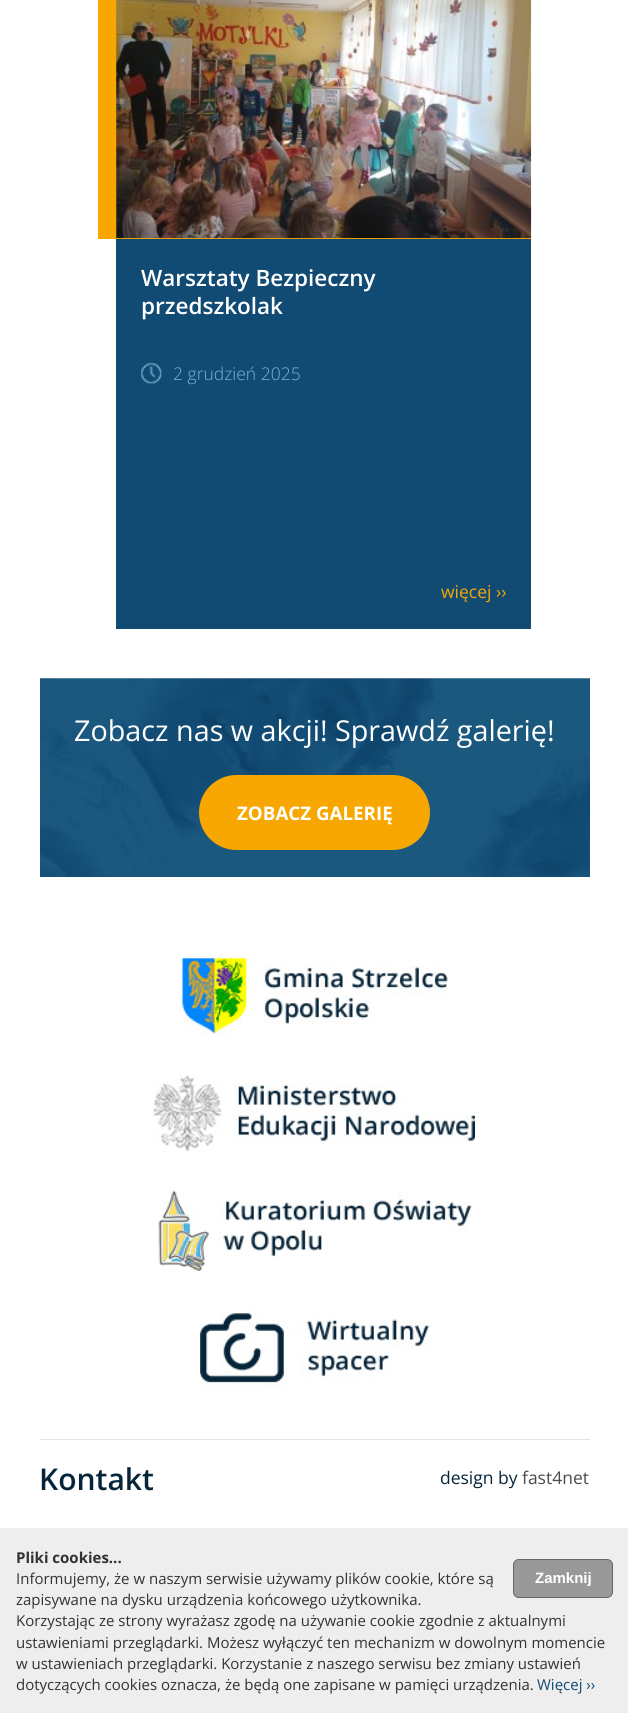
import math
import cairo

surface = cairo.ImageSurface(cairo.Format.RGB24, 628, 1713)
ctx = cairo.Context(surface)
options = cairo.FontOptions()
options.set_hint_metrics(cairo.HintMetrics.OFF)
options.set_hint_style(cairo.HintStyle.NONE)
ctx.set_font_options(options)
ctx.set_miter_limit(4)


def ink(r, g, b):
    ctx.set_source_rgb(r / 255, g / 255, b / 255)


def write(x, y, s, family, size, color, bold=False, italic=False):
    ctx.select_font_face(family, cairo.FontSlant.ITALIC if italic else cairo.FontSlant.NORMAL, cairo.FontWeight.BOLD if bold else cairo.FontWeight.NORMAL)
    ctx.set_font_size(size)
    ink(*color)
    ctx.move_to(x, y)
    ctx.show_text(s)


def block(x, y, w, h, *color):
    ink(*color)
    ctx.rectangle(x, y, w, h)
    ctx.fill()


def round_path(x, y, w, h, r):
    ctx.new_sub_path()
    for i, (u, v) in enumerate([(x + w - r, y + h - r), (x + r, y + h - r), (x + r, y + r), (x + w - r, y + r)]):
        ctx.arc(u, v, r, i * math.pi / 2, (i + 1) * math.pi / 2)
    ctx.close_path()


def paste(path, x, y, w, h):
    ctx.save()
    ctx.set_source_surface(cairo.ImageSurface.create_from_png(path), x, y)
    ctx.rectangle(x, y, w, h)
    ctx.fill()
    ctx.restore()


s1 = dict(family="Open Sans SemiBold", size=22.5, color=(255, 255, 255))
s2 = dict(family="Open Sans Light", size=17.5, color=(127, 174, 209))
s3 = dict(family="Open Sans", size=17.5, color=(247, 167, 0))
s4 = dict(family="Open Sans", size=28.75, color=(255, 255, 255))
s5 = dict(family="Open Sans", size=18.75, color=(255, 255, 255), bold=True)
s6 = dict(family="Open Sans SemiBold", size=30, color=(7, 37, 57))
s7 = dict(family="Open Sans", size=17.5, color=(7, 37, 57))
s8 = dict(family="Open Sans", size=17.5, color=(75, 75, 75))
s9 = dict(family="Open Sans", size=15, color=(51, 51, 51), bold=True)
s10 = dict(family="Open Sans", size=15, color=(51, 51, 51))
s11 = dict(family="Liberation Sans", size=15, color=(255, 255, 255), bold=True)
s12 = dict(family="Open Sans", size=15, color=(17, 75, 115))

ink(255, 255, 255)
ctx.paint()
block(98, 0, 433, 239, 247, 167, 0)
paste("pic1.png", 116, 0, 416, 239)
block(116, 239, 415, 390, 17, 75, 115)
write(141, 286, "Warsztaty Bezpieczny", **s1)
write(141, 314, "przedszkolak", **s1)
paste("pic2.png", 141, 363, 21, 21)
write(173, 380, "2 grudzień 2025", **s2)
write(441, 598, "więcej ››", **s3)
paste("pic3.png", 40, 678, 550, 199)
write(74, 741, "Zobacz nas w akcji! Sprawdź galerię!", **s4)
ink(247, 167, 0)
round_path(199, 775, 231, 75, 37.5)
ctx.fill()
write(237, 820, "ZOBACZ GALERIĘ", **s5)
paste("pic4.png", 182, 955, 266, 81)
paste("pic5.png", 153, 1075, 322, 78)
paste("pic6.png", 158, 1190, 314, 81)
paste("pic7.png", 200, 1310, 229, 78)
block(40, 1439, 550, 1, 228, 228, 228)
write(39, 1490, "Kontakt", **s6)
write(440, 1484, "design by", **s7)
write(522, 1484, "fast4net", **s8)
block(0, 1528, 628, 185, 238, 238, 238)
write(16, 1563, "Pliki cookies...", **s9)
write(16, 1584, "Informujemy, że w naszym serwisie używamy plików cookie, które są", **s10)
ink(153, 153, 153)
round_path(513.5, 1559.5, 99, 38, 5.5)
ctx.fill_preserve()
ink(102, 102, 102)
ctx.set_line_width(1)
ctx.stroke()
write(535, 1583, "Zamknij", **s11)
write(16, 1605, "zapisywane na dysku urządzenia końcowego użytkownika.", **s10)
write(16, 1626, "Korzystając ze strony wyrażasz zgodę na używanie cookie zgodnie z aktualnymi", **s10)
write(16, 1648, "ustawieniami przeglądarki. Możesz wyłączyć ten mechanizm w dowolnym momencie", **s10)
write(16, 1669, "w ustawieniach przeglądarki. Korzystanie z naszego serwisu bez zmiany ustawień", **s10)
write(16, 1690, "dotyczących cookies oznacza, że będą one zapisane w pamięci urządzenia.", **s10)
write(537, 1690, "Więcej ››", **s12)
surface.write_to_png("screenshot.png")
